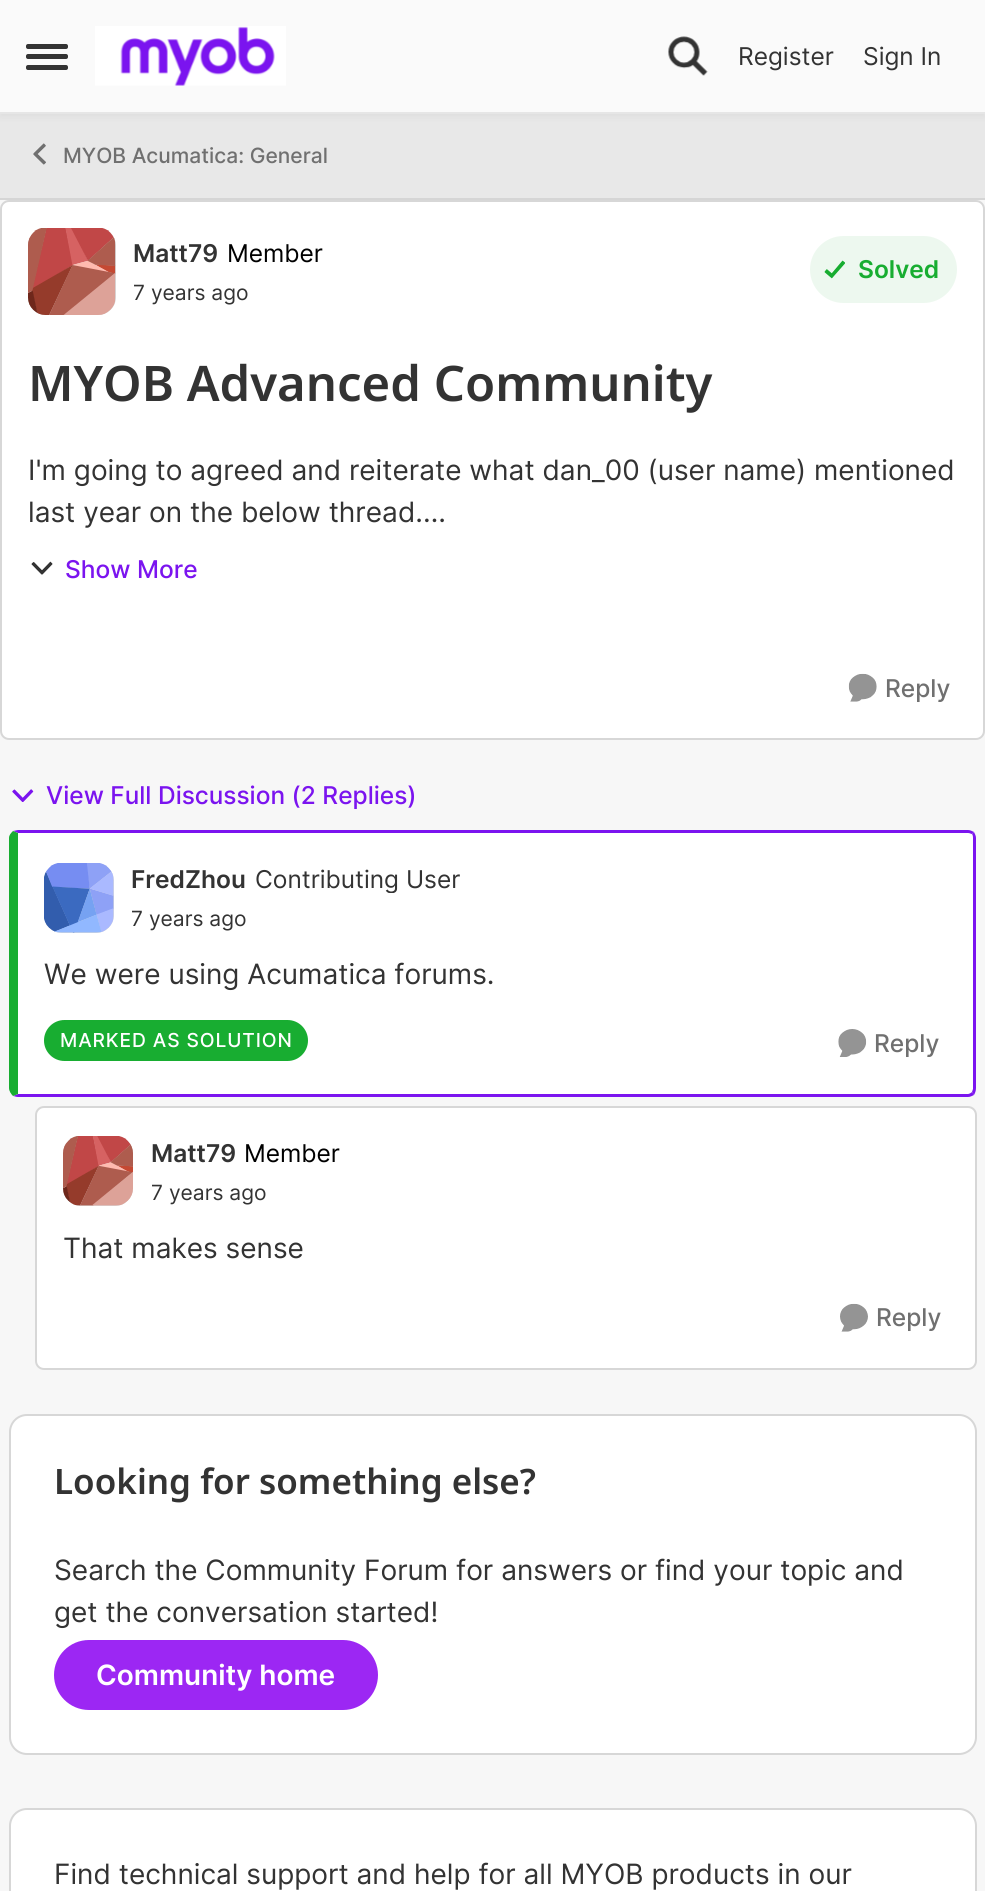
import math
import cairo

surface = cairo.ImageSurface(cairo.Format.RGB24, 985, 1891)
ctx = cairo.Context(surface)
options = cairo.FontOptions()
options.set_hint_metrics(cairo.HintMetrics.OFF)
options.set_hint_style(cairo.HintStyle.NONE)
ctx.set_font_options(options)
ctx.set_miter_limit(4)


def ink(r, g, b):
    ctx.set_source_rgb(r / 255, g / 255, b / 255)


def write(x, y, s, family, size, color, bold=False, italic=False):
    ctx.select_font_face(family, cairo.FontSlant.ITALIC if italic else cairo.FontSlant.NORMAL, cairo.FontWeight.BOLD if bold else cairo.FontWeight.NORMAL)
    ctx.set_font_size(size)
    ink(*color)
    ctx.move_to(x, y)
    ctx.show_text(s)


def write_spaced(x, y, s, letter, word):
    ctx.move_to(x, y)
    for ch in s:
        ctx.show_text(ch)
        ctx.rel_move_to(letter + word * (ch == ' '), 0)


def block(x, y, w, h, *color):
    ink(*color)
    ctx.rectangle(x, y, w, h)
    ctx.fill()


def round_path(x, y, w, h, r):
    ctx.new_sub_path()
    for i, (u, v) in enumerate([(x + w - r, y + h - r), (x + r, y + h - r), (x + r, y + r), (x + w - r, y + r)]):
        ctx.arc(u, v, r, i * math.pi / 2, (i + 1) * math.pi / 2)
    ctx.close_path()


def blur_box(x, y, w, h, r, blur, alpha):
    ctx.push_group_with_content(cairo.Content.ALPHA)
    ctx.set_operator(cairo.Operator.SOURCE)
    for i in range(15, -16, -2):
        e = blur * i / 6
        if min(w, h) + 2 * e > 0:
            ctx.set_source_rgba(0, 0, 0, alpha * math.erfc((i - 1) / 8.5) / 2)
            round_path(x - e, y - e, w + 2 * e, h + 2 * e, max(0, min(r + e + blur * .6, min(w, h) / 2 + e)))
            ctx.fill()
    ctx.mask(ctx.pop_group())


def paste(path, x, y, w, h):
    ctx.save()
    ctx.set_source_surface(cairo.ImageSurface.create_from_png(path), x, y)
    ctx.rectangle(x, y, w, h)
    ctx.fill()
    ctx.restore()


s1 = dict(family="Inter", size=24.5, color=(51, 51, 51))
s2 = dict(family="Inter Medium", size=21, color=(112, 112, 112))
s3 = dict(family="Inter SemiBold", size=24.5, color=(51, 51, 51))
s4 = dict(family="Inter", size=24.5, color=(0, 0, 0))
s5 = dict(family="Inter", size=21, color=(51, 51, 51))
s6 = dict(family="Inter SemiBold", size=24.5, color=(24, 173, 49))
s7 = dict(family="Noto Sans SemiBold", size=49, color=(51, 51, 51))
s8 = dict(family="Inter", size=28, color=(51, 51, 51))
s9 = dict(family="Inter Medium", size=24.5, color=(123, 20, 239))
s10 = dict(family="Inter Medium", size=24.5, color=(112, 112, 112))
s11 = dict(family="Noto Sans SemiBold", size=35, color=(51, 51, 51))
s12 = dict(family="Inter SemiBold", size=28, color=(255, 255, 255))

ink(232, 232, 232)
ctx.paint()
ink(51, 51, 51)
blur_box(0, 4, 985, 113, 0, 3.5, 0.06)
block(0, 0, 985, 112, 250, 250, 250)
block(0, 112, 985, 2, 230, 230, 230)
ink(51, 51, 51)
round_path(26, 44, 42, 5, 2)
ctx.fill()
round_path(26, 54, 42, 5, 2)
ctx.fill()
round_path(26, 65, 42, 5, 2)
ctx.fill()
paste("pic1.png", 95, 26, 191, 60)
paste("pic2.png", 668, 36, 40, 40)
write(738, 65, "Register", **s1)
write(863, 65, "Sign In", **s1)
block(0, 198, 985, 2, 213, 213, 213)
paste("pic3.png", 33, 143, 13, 22)
write(63, 163, "MYOB Acumatica: General", **s2)
block(0, 200, 985, 1691, 247, 247, 247)
ink(255, 255, 255)
round_path(0, 200, 985, 540, 9)
ctx.fill()
round_path(1, 201, 983, 538, 8)
ctx.set_source_rgba(0, 0, 0, 0.16)
ctx.stroke()
ink(217, 217, 217)
round_path(28, 228, 88, 87, 18)
ctx.fill()
paste("pic4.png", 28, 228, 88, 87)
write(133, 262, "Matt79", **s3)
write(227, 262, "Member", **s4)
write(133, 300, "7 years ago", **s5)
ink(237, 248, 239)
round_path(810, 236, 147, 67, 33.5)
ctx.fill()
paste("pic5.png", 824, 260, 21, 19)
write(858, 278, "Solved", **s6)
write(28, 401, "MYOB Advanced Community", **s7)
write(28, 480, "I'm going to agreed and reiterate what dan_00 (user name) mentioned", **s8)
write(28, 522, "last year on the below thread.…", **s8)
paste("pic6.png", 31, 561, 22, 14)
write(65, 578, "Show More", **s9)
paste("pic7.png", 848, 673, 29, 29)
write(885, 697, "Reply", **s10)
paste("pic8.png", 12, 789, 22, 13)
write(46, 804, "View Full Discussion (2 Replies)", **s9)
ink(255, 255, 255)
ctx.new_path()
ctx.move_to(18, 833)
ctx.line_to(968, 833)
ctx.curve_to(971, 833, 973, 835, 973, 838)
ctx.line_to(973, 1088)
ctx.curve_to(973, 1091, 971, 1094, 968, 1094)
ctx.line_to(18, 1094)
ctx.close_path()
ctx.fill()
ink(123, 20, 239)
ctx.new_path()
ctx.move_to(18, 830)
ctx.line_to(13, 831)
ctx.line_to(18, 833)
ctx.line_to(968, 833)
ctx.curve_to(970, 833, 971, 834, 972, 834)
ctx.line_to(974, 832)
ctx.curve_to(972, 831, 970, 830, 968, 830)
ctx.close_path()
ctx.fill()
ctx.new_path()
ctx.move_to(974, 832)
ctx.curve_to(975, 834, 976, 836, 976, 838)
ctx.line_to(976, 1088)
ctx.curve_to(976, 1091, 975, 1093, 974, 1095)
ctx.line_to(972, 1092)
ctx.line_to(973, 1089)
ctx.line_to(973, 838)
ctx.curve_to(973, 837, 973, 835, 972, 834)
ctx.close_path()
ctx.fill()
ctx.new_path()
ctx.move_to(974, 1095)
ctx.curve_to(972, 1096, 970, 1097, 968, 1097)
ctx.line_to(18, 1097)
ctx.curve_to(16, 1097, 14, 1096, 13, 1096)
ctx.line_to(18, 1094)
ctx.line_to(968, 1094)
ctx.curve_to(969, 1094, 971, 1093, 972, 1092)
ctx.close_path()
ctx.fill()
ink(24, 173, 49)
ctx.new_path()
ctx.move_to(13, 831)
ctx.curve_to(11, 833, 9, 835, 9, 838)
ctx.line_to(9, 1088)
ctx.curve_to(9, 1091, 11, 1094, 13, 1096)
ctx.line_to(18, 1094)
ctx.line_to(18, 833)
ctx.close_path()
ctx.fill()
ink(217, 217, 217)
round_path(44, 863, 70, 70, 18)
ctx.fill()
paste("pic9.png", 44, 863, 70, 70)
write(131, 888, "FredZhou", **s3)
ctx.save()
ctx.rectangle(256, 863, 204, 30)
ctx.clip()
write(255, 888, "Contributing User", **s1)
ctx.restore()
write(131, 926, "7 years ago", **s5)
write(44, 984, "We were using Acumatica forums.", **s8)
ink(24, 173, 49)
round_path(44, 1020, 264, 41, 20.5)
ctx.fill()
ctx.select_font_face("Inter Medium")
ctx.set_font_size(19.25)
ink(255, 255, 255)
write_spaced(60, 1047, "MARKED AS SOLUTION", 0.9, 0)
paste("pic10.png", 838, 1029, 29, 28)
write(874, 1052, "Reply", **s10)
ink(255, 255, 255)
round_path(35, 1106, 942, 264, 9)
ctx.fill()
round_path(36, 1107, 940, 262, 8)
ctx.set_source_rgba(0, 0, 0, 0.16)
ctx.stroke()
ink(217, 217, 217)
round_path(63, 1136, 70, 70, 18)
ctx.fill()
paste("pic11.png", 63, 1136, 70, 70)
write(151, 1162, "Matt79", **s3)
write(244, 1162, "Member", **s4)
write(151, 1200, "7 years ago", **s5)
write(63, 1258, "That makes sense", **s8)
paste("pic12.png", 840, 1303, 28, 29)
write(876, 1326, "Reply", **s10)
ink(255, 255, 255)
round_path(9, 1414, 968, 341, 18)
ctx.fill()
round_path(10, 1415, 966, 339, 17)
ctx.set_source_rgba(0, 0, 0, 0.16)
ctx.stroke()
write(54, 1494, "Looking for something else?", **s11)
write(54, 1580, "Search the Community Forum for answers or find your topic and", **s8)
write(54, 1622, "get the conversation started!", **s8)
ink(156, 39, 243)
round_path(54, 1640, 324, 70, 35)
ctx.fill()
write(96, 1685, "Community home", **s12)
round_path(9, 1808, 968, 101, 18)
ctx.fill()
round_path(10, 1809, 966, 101, 17)
ctx.set_source_rgba(0, 0, 0, 0.16)
ctx.stroke()
write(54, 1884, "Find technical support and help for all MYOB products in our", **s8)
surface.write_to_png("screenshot.png")
